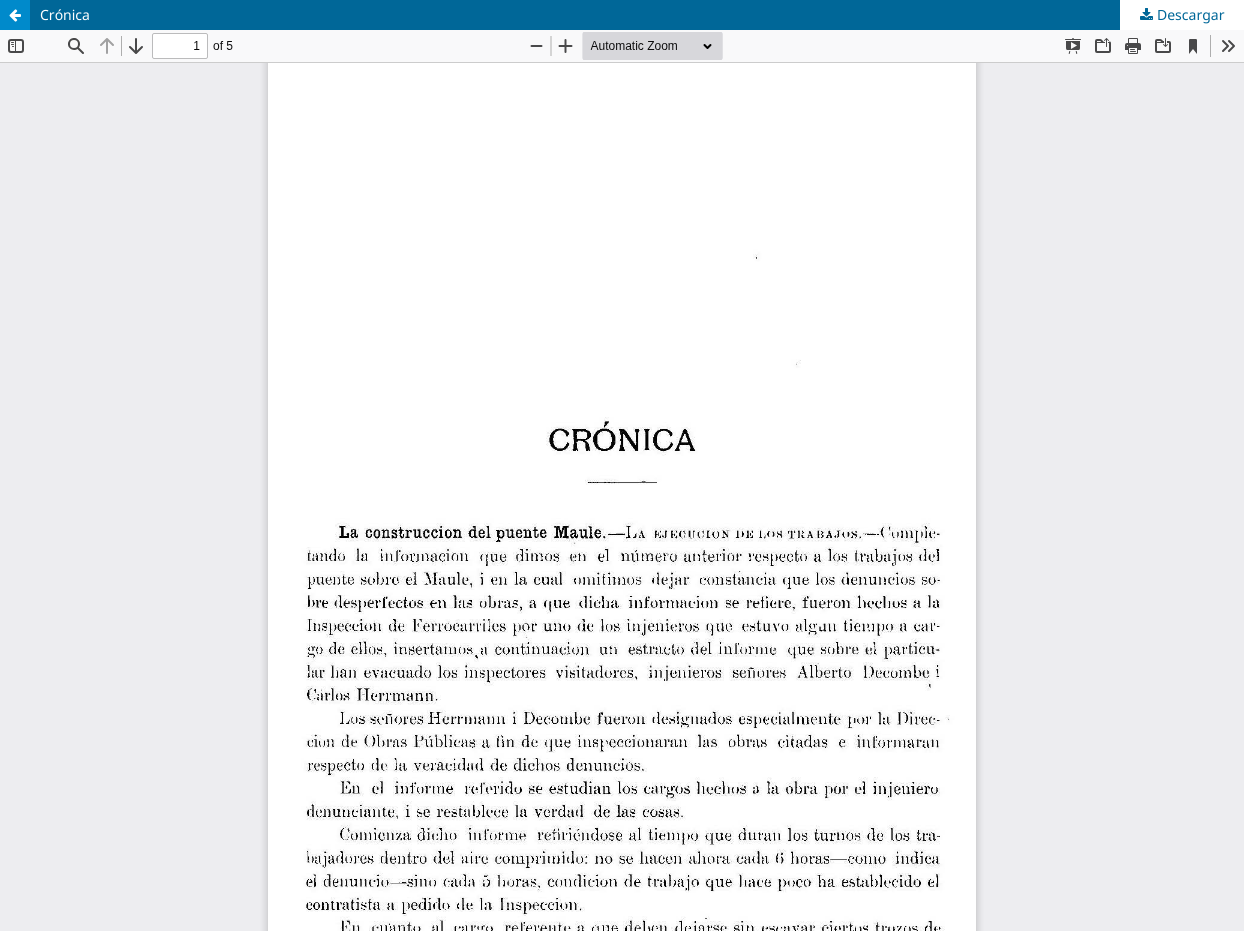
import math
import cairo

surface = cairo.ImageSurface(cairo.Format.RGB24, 1244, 931)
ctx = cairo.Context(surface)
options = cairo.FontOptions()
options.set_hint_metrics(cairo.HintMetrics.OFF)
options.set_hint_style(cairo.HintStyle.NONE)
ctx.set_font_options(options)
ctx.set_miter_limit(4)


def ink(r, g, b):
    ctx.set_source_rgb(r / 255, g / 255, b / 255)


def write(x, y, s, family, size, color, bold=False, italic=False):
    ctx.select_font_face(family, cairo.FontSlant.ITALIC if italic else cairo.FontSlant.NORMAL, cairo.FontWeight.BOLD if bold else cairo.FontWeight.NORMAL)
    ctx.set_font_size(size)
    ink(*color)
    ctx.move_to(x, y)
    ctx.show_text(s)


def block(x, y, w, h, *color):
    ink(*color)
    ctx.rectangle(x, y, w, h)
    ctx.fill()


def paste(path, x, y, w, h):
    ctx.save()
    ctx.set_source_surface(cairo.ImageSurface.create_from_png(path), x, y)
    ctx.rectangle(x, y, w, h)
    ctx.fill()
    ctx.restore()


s1 = dict(family="Noto Sans", size=14, color=(255, 255, 255))
s2 = dict(family="Noto Sans", size=14, color=(0, 103, 152))

ink(255, 255, 255)
ctx.paint()
block(30, 0, 1090, 30, 0, 103, 152)
block(0, 0, 30, 30, 0, 138, 203)
paste("pic1.png", 9, 9, 12, 13)
write(40, 20, "Crónica", **s1)
paste("pic2.png", 1140, 8, 13, 12)
write(1157, 20, "Descargar", **s2)
paste("pic3.png", 0, 30, 1244, 901)
surface.write_to_png("screenshot.png")
